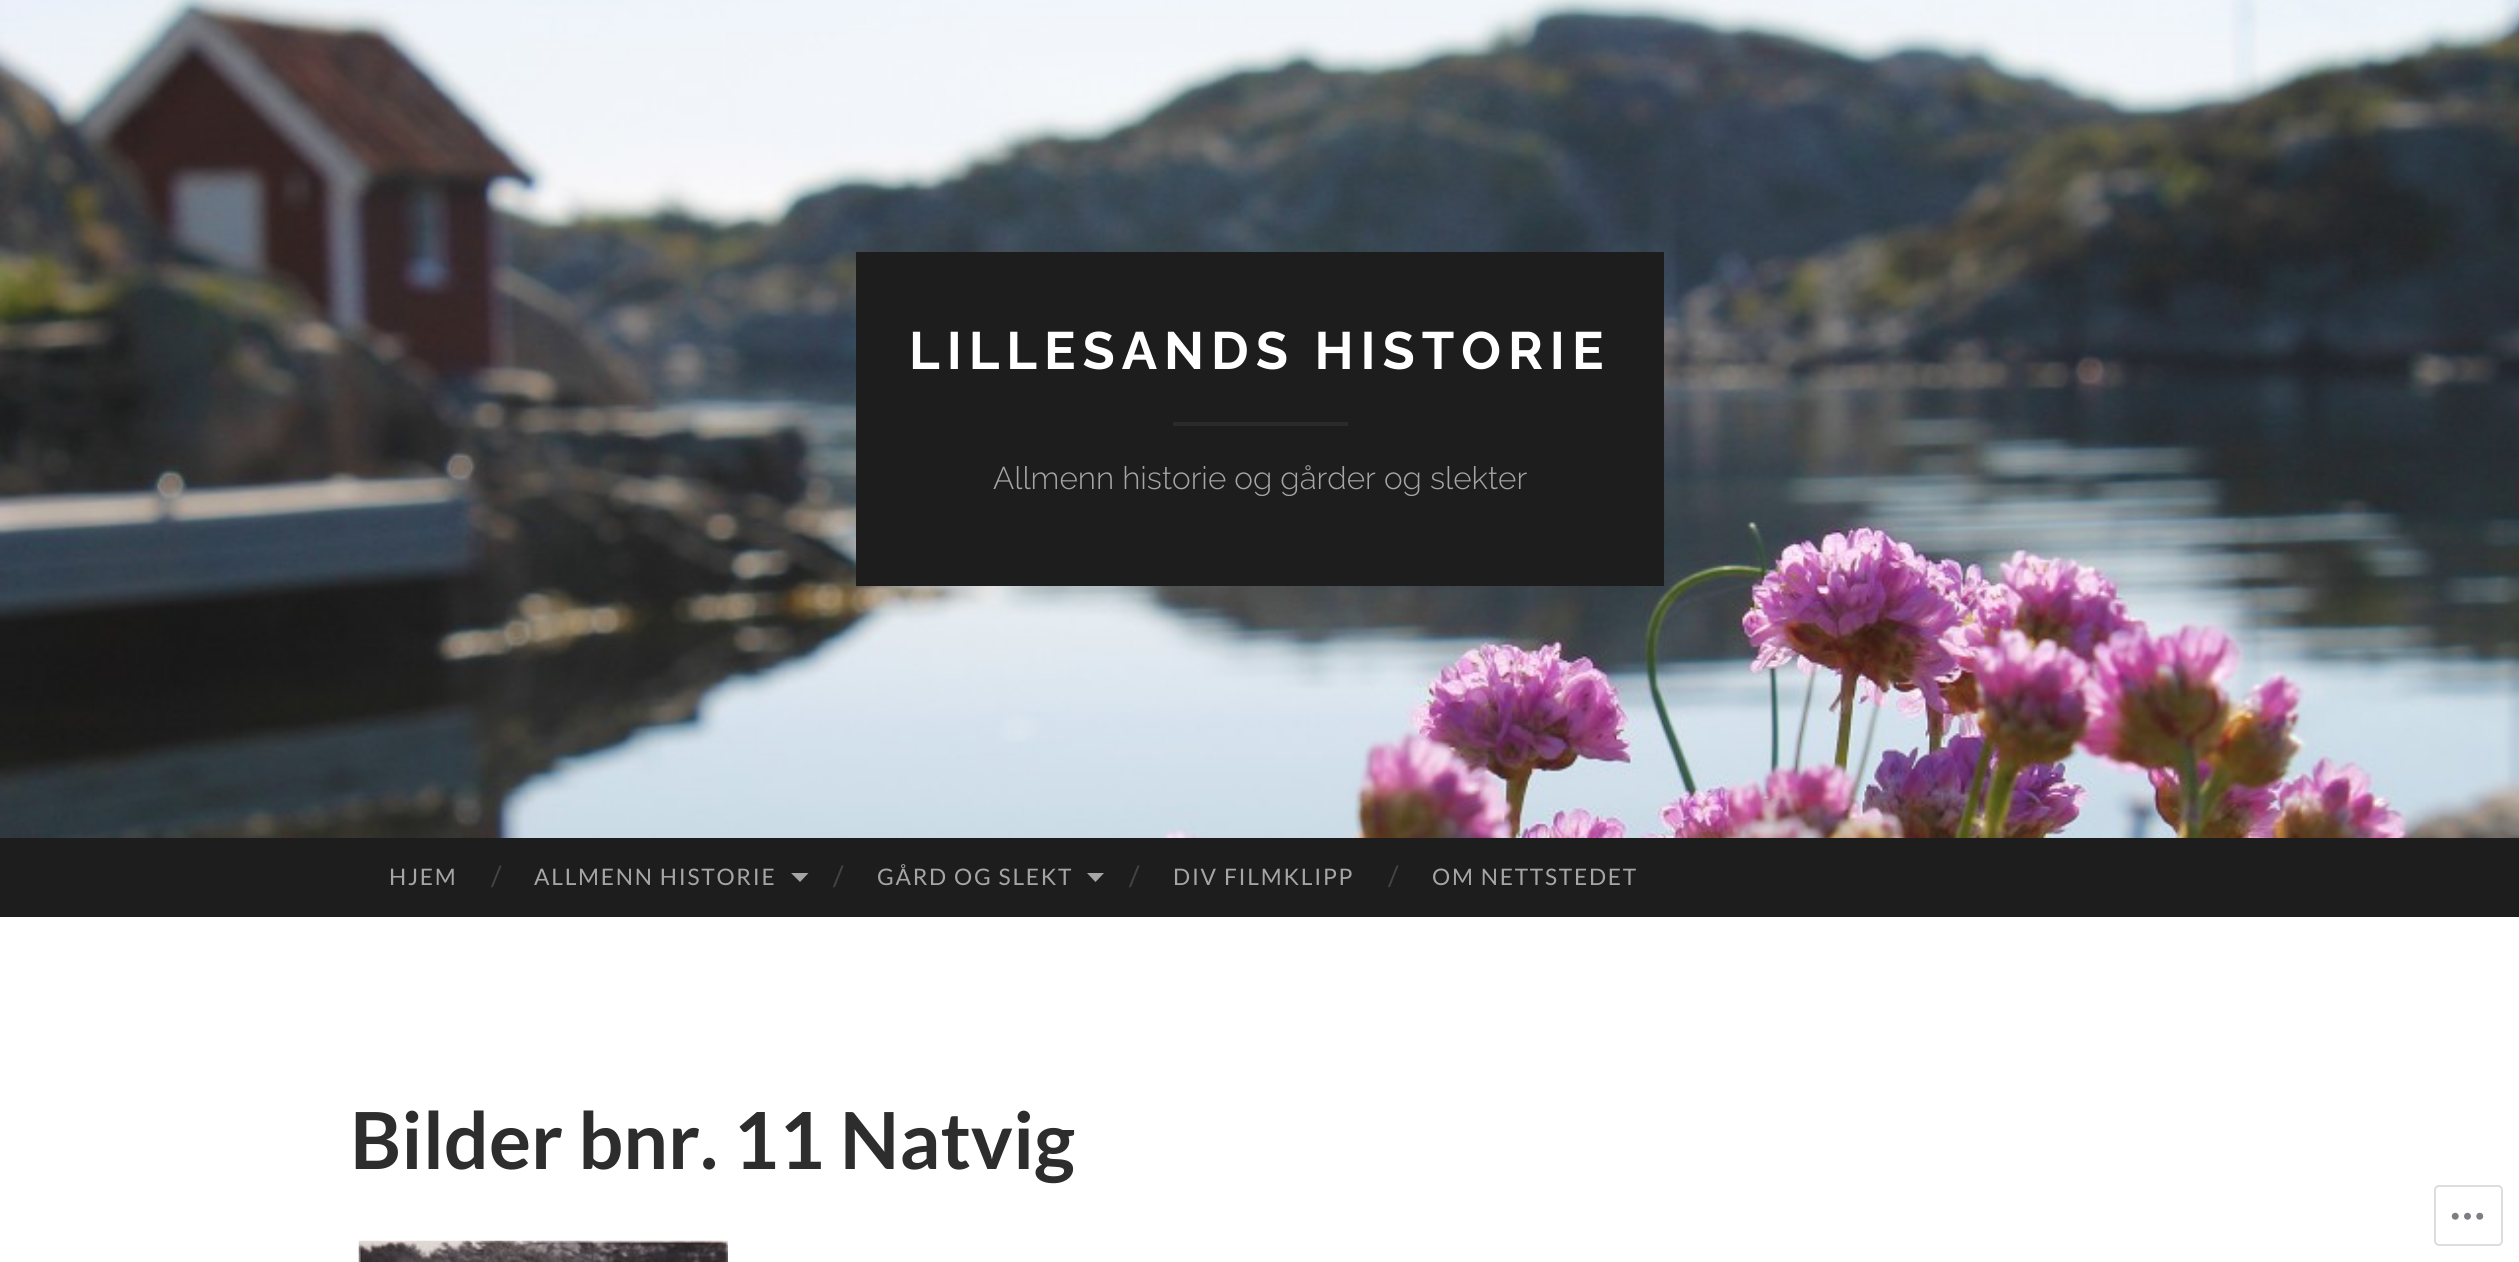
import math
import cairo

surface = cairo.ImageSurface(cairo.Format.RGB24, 2519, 1262)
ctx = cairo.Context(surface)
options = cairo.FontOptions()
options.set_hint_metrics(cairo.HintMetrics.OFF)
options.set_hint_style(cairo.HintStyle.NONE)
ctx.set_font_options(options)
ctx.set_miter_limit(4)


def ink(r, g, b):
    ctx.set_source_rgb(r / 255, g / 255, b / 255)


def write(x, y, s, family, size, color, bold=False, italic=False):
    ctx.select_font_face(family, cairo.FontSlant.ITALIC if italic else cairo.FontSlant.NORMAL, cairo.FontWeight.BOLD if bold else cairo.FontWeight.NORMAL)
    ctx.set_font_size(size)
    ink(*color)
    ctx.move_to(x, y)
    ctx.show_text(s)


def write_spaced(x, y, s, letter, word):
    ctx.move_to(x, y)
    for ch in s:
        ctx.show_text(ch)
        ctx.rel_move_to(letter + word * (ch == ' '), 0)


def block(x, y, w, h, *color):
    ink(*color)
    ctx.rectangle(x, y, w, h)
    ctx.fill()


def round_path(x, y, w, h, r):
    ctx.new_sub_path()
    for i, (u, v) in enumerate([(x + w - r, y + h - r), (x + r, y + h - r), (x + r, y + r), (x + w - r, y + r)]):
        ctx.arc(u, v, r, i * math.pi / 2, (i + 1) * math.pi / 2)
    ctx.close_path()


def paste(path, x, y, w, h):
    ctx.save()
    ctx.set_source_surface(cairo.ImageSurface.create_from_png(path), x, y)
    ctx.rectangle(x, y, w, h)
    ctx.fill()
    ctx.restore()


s1 = dict(family="Raleway Light", size=31.5, color=(165, 165, 165))
s2 = dict(family="Lato", size=28, color=(68, 68, 68))
s3 = dict(family="Lato", size=78.75, color=(45, 45, 45), bold=True)

ink(255, 255, 255)
ctx.paint()
paste("pic1.png", 0, 0, 2519, 838)
block(856, 252, 808, 334, 29, 29, 29)
ctx.select_font_face("Raleway", cairo.FontSlant.NORMAL, cairo.FontWeight.BOLD)
ctx.set_font_size(52.5)
ink(255, 255, 255)
write_spaced(909, 369, "LILLESANDS HISTORIE", 7, 0)
block(1173, 422, 175, 4, 43, 43, 43)
write(993, 489, "Allmenn historie og gårder og slekter", **s1)
block(0, 838, 2519, 79, 29, 29, 29)
ctx.select_font_face("Lato")
ctx.set_font_size(22.75)
ink(165, 165, 165)
write_spaced(389, 885, "HJEM", 1.75, 0)
write(491, 886, "/", **s2)
ctx.set_font_size(22.75)
ink(165, 165, 165)
write_spaced(534, 885, "ALLMENN HISTORIE", 1.75, 0)
ctx.new_path()
ctx.move_to(791, 873)
ctx.line_to(808.5, 873)
ctx.line_to(800, 882)
ctx.close_path()
ctx.fill()
write(833, 886, "/", **s2)
ctx.set_font_size(22.75)
ink(165, 165, 165)
write_spaced(877, 885, "GÅRD OG SLEKT", 1.75, 0)
ctx.new_path()
ctx.move_to(1087, 873)
ctx.line_to(1104, 873)
ctx.line_to(1095.5, 882)
ctx.close_path()
ctx.fill()
write(1129, 886, "/", **s2)
ctx.set_font_size(22.75)
ink(165, 165, 165)
write_spaced(1173, 885, "DIV FILMKLIPP", 1.75, 0)
write(1388, 886, "/", **s2)
ctx.set_font_size(22.75)
ink(165, 165, 165)
write_spaced(1432, 885, "OM NETTSTEDET", 1.75, 0)
write(350, 1169, "Bilder bnr. 11 Natvig", **s3)
paste("pic2.png", 358, 1240, 370, 22)
round_path(2435, 1186, 67, 59, 4)
ink(221, 221, 223)
ctx.stroke()
paste("pic3.png", 2451, 1212, 33, 8)
surface.write_to_png("screenshot.png")
